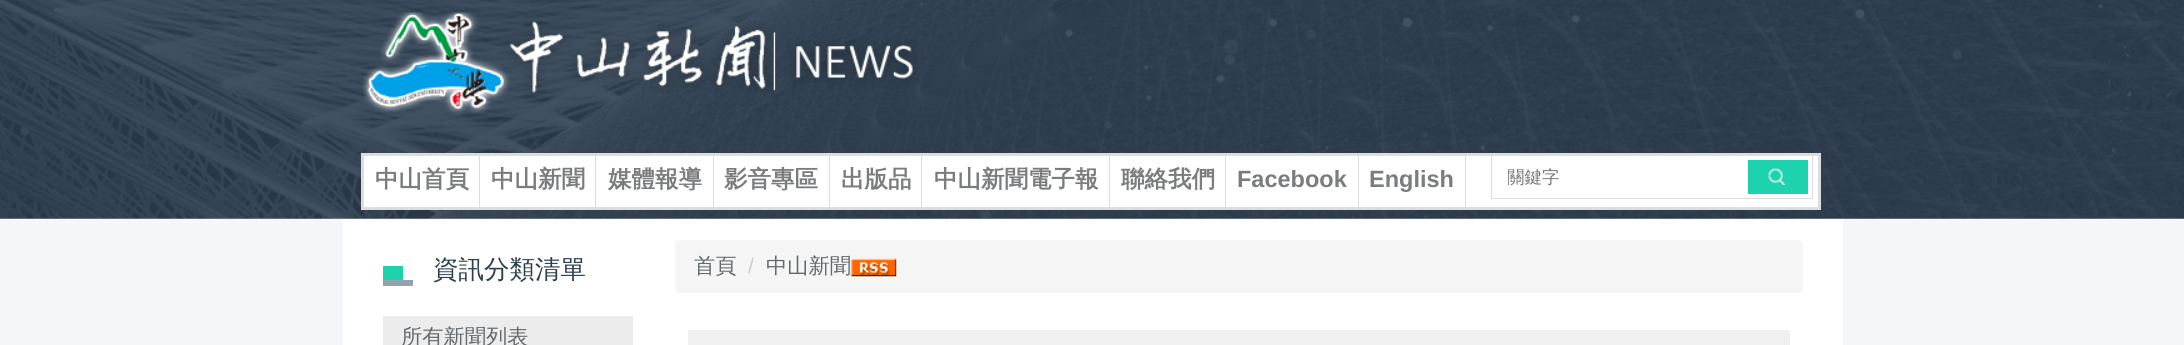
import math
import cairo

surface = cairo.ImageSurface(cairo.Format.RGB24, 2184, 345)
ctx = cairo.Context(surface)
options = cairo.FontOptions()
options.set_hint_metrics(cairo.HintMetrics.OFF)
options.set_hint_style(cairo.HintStyle.NONE)
ctx.set_font_options(options)
ctx.set_miter_limit(4)


def ink(r, g, b):
    ctx.set_source_rgb(r / 255, g / 255, b / 255)


def write(x, y, s, family, size, color, bold=False, italic=False):
    ctx.select_font_face(family, cairo.FontSlant.ITALIC if italic else cairo.FontSlant.NORMAL, cairo.FontWeight.BOLD if bold else cairo.FontWeight.NORMAL)
    ctx.set_font_size(size)
    ink(*color)
    ctx.move_to(x, y)
    ctx.show_text(s)


def block(x, y, w, h, *color):
    ink(*color)
    ctx.rectangle(x, y, w, h)
    ctx.fill()


def round_path(x, y, w, h, r):
    ctx.new_sub_path()
    for i, (u, v) in enumerate([(x + w - r, y + h - r), (x + r, y + h - r), (x + r, y + r), (x + w - r, y + r)]):
        ctx.arc(u, v, r, i * math.pi / 2, (i + 1) * math.pi / 2)
    ctx.close_path()


def paste(path, x, y, w, h):
    ctx.save()
    ctx.set_source_surface(cairo.ImageSurface.create_from_png(path), x, y)
    ctx.rectangle(x, y, w, h)
    ctx.fill()
    ctx.restore()


s1 = dict(family="WenQuanYi Zen Hei", size=23.5, color=(122, 124, 125), bold=True)
s2 = dict(family="Liberation Sans", size=23.5, color=(122, 124, 125), bold=True)
s3 = dict(family="WenQuanYi Zen Hei Medium", size=17.5, color=(119, 119, 119))
s4 = dict(family="WenQuanYi Zen Hei Medium", size=25.5, color=(44, 62, 80))
s5 = dict(family="WenQuanYi Zen Hei Medium", size=21.25, color=(100, 105, 108))
s6 = dict(family="Liberation Sans", size=21.25, color=(204, 204, 204))

ink(244, 246, 247)
ctx.paint()
paste("pic1.png", 0, 0, 2184, 219)
paste("pic2.png", 362, 12, 555, 103)
ink(255, 255, 255)
ctx.rectangle(362.5, 154.5, 1457, 54)
ctx.fill_preserve()
ink(221, 221, 221)
ctx.set_line_width(3)
ctx.stroke()
block(479, 155, 1, 53, 221, 221, 221)
write(375, 187, "中山首頁", **s1)
block(595, 155, 1, 53, 221, 221, 221)
write(491, 187, "中山新聞", **s1)
block(713, 155, 1, 53, 221, 221, 221)
write(608, 187, "媒體報導", **s1)
block(829, 155, 1, 53, 221, 221, 221)
write(724, 187, "影音專區", **s1)
block(921, 155, 1, 53, 221, 221, 221)
write(841, 187, "出版品", **s1)
block(1109, 155, 1, 53, 221, 221, 221)
write(934, 187, "中山新聞電子報", **s1)
block(1225, 155, 1, 53, 221, 221, 221)
write(1121, 187, "聯絡我們", **s1)
block(1358, 155, 1, 53, 221, 221, 221)
write(1237, 187, "Facebook", **s2)
block(1465, 155, 1, 53, 221, 221, 221)
write(1369, 187, "English", **s2)
ctx.rectangle(1491.5, 155.5, 321, 43)
ink(221, 221, 221)
ctx.set_line_width(1)
ctx.stroke()
ctx.save()
ctx.rectangle(1508, 166, 226, 23)
ctx.clip()
write(1507, 183, "關鍵字", **s3)
ctx.restore()
block(1748, 160, 60, 34, 29, 210, 175)
paste("pic3.png", 1768, 168, 17, 17)
block(343, 219, 1500, 126, 255, 255, 255)
block(383, 266, 20, 14, 29, 210, 175)
write(433, 278, "資訊分類清單", **s4)
block(383, 280, 30, 6, 148, 162, 175)
block(383, 316, 250, 29, 236, 236, 236)
write(401, 344, "所有新聞列表", **s5)
ink(245, 245, 245)
round_path(675, 240, 1128, 53, 5)
ctx.fill()
write(694, 273, "首頁", **s5)
write(748, 273, "/", **s6)
write(766, 273, "中山新聞", **s5)
paste("pic4.png", 851, 258, 46, 19)
block(688, 330, 1102, 15, 240, 240, 240)
surface.write_to_png("screenshot.png")
